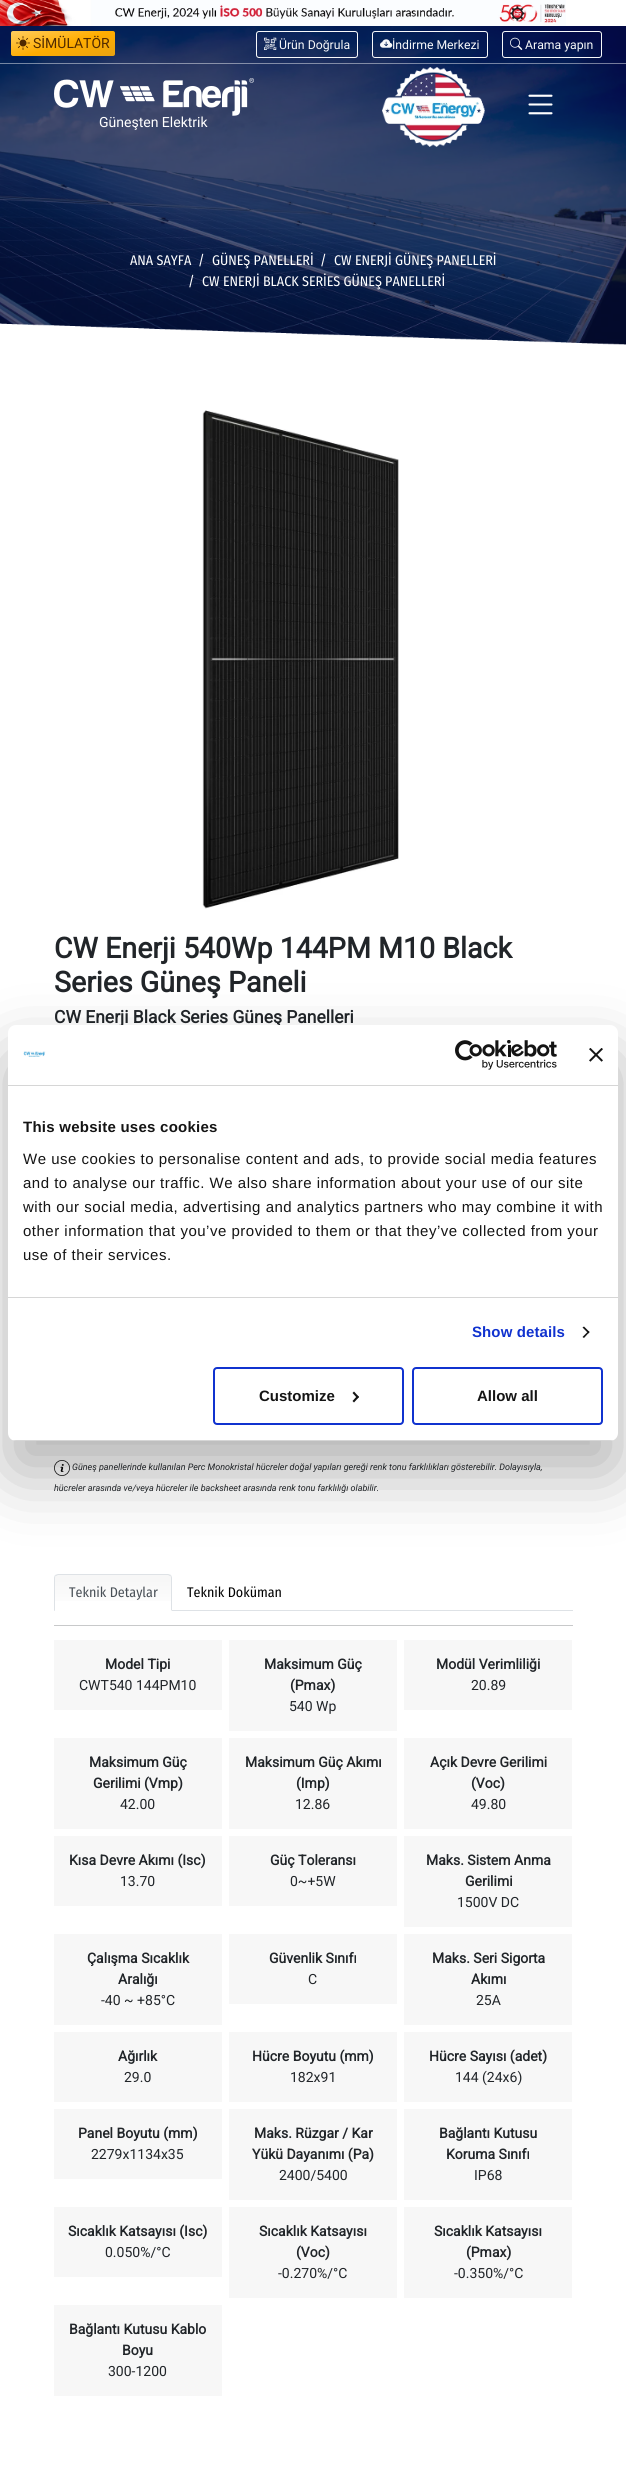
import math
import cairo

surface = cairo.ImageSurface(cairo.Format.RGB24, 626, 2465)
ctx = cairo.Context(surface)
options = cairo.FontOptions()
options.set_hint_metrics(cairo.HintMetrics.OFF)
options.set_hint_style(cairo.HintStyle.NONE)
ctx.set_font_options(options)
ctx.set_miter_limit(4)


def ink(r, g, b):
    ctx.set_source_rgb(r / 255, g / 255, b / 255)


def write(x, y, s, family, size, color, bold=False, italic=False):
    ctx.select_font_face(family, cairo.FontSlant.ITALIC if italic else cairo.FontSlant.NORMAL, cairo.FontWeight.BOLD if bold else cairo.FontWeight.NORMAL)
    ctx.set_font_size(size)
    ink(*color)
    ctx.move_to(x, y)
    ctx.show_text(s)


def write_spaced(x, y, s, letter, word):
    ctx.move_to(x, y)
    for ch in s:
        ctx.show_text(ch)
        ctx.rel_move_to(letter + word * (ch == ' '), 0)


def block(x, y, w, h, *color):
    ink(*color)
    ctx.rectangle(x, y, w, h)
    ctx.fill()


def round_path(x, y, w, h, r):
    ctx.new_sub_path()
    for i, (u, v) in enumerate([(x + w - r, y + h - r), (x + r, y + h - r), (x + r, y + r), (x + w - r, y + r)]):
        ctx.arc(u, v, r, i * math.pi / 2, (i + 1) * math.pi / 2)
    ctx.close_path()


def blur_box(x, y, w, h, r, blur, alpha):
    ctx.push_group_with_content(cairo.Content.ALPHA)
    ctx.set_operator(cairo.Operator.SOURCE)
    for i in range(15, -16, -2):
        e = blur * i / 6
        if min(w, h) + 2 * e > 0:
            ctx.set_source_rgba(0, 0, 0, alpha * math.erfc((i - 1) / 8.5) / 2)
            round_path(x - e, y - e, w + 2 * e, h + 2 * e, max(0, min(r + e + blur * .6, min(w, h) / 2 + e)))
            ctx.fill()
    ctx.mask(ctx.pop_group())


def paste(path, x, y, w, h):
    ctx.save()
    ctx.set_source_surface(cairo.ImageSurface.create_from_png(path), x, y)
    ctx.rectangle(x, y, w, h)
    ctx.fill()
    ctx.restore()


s1 = dict(family="Roboto", size=14, color=(80, 41, 0))
s2 = dict(family="Roboto", size=12.25, color=(248, 249, 250))
s3 = dict(family="Roboto", size=14, color=(255, 255, 255))
s4 = dict(family="Fira Sans Condensed", size=14, color=(255, 255, 255))
s5 = dict(family="Roboto", size=28.6, color=(33, 37, 41), bold=True)
s6 = dict(family="Roboto", size=17.5, color=(33, 37, 41), bold=True)
s7 = dict(family="Roboto", size=9, color=(33, 37, 41), italic=True)
s8 = dict(family="Fira Sans Condensed", size=14, color=(73, 80, 87))
s9 = dict(family="Fira Sans Condensed", size=14, color=(0, 0, 0))
s10 = dict(family="Roboto", size=14, color=(33, 37, 41), bold=True)
s11 = dict(family="Roboto", size=14, color=(33, 37, 41))
s12 = dict(family="Liberation Sans", size=15, color=(20, 20, 20), bold=True)

ink(255, 255, 255)
ctx.paint()
paste("pic1.png", 0, 0, 566, 26)
paste("pic9.png", 0, 26, 626, 319)
ctx.set_source_rgba(1, 1, 1, 0.45)
ctx.rectangle(0, 63, 626, 1)
ctx.fill()
gradient = cairo.LinearGradient(70, 68, 56, 19)
gradient.add_color_stop_rgba(0, 0.914, 0.639, 0.067, 1)
gradient.add_color_stop_rgba(0.47, 1, 0.678, 0, 1)
gradient.add_color_stop_rgba(1, 1, 0.8, 0.365, 1)
ctx.set_source(gradient)
round_path(11, 31, 104, 25, 2)
ctx.fill()
paste("pic2.png", 16, 36, 14, 14)
write(33, 48, "SİMÜLATÖR", **s1)
round_path(256.5, 31.5, 101, 26, 2.5)
ink(248, 249, 250)
ctx.set_line_width(1)
ctx.stroke()
paste("pic3.png", 264, 37, 13, 13)
write(279, 49, "Ürün Doğrula", **s2)
round_path(372.5, 31.5, 115, 26, 2.5)
ctx.stroke()
paste("pic4.png", 380, 39, 13, 9)
write(392, 49, "İndirme Merkezi", **s2)
round_path(502.5, 31.5, 99, 26, 2.5)
ctx.stroke()
paste("pic5.png", 510, 37, 13, 13)
write(525, 49, "Arama yapın", **s2)
paste("pic6.png", 382, 67, 103, 80)
paste("pic7.png", 528, 94, 25, 21)
paste("pic8.png", 54, 78, 200, 38)
write(99, 127, "Güneşten Elektrik", **s3)
write(130, 265, "ANA SAYFA", **s4)
write(198, 265, "/", **s4)
write(212, 265, "GÜNEŞ PANELLERİ", **s4)
write(320, 265, "/", **s4)
write(334, 265, "CW ENERJİ GÜNEŞ PANELLERİ", **s4)
write(188, 286, "/", **s4)
write(202, 286, "CW ENERJİ BLACK SERİES GÜNEŞ PANELLERİ", **s4)
paste("pic10.png", 0, 323, 626, 33)
paste("pic11.png", 202, 410, 197, 499)
write(54, 958, "CW Enerji 540Wp 144PM M10 Black", **s5)
write(54, 992, "Series Güneş Paneli", **s5)
write(54, 1023, "CW Enerji Black Series Güneş Panelleri", **s6)
paste("pic12.png", 54, 1460, 16, 16)
write(72, 1470, "Güneş panellerinde kullanılan Perc Monokristal hücreler doğal yapıları gereği renk tonu farklılıkları gösterebilir. Dolayısıyla,", **s7)
write(54, 1491, "hücreler arasında ve/veya hücreler ile backsheet arasında renk tonu farklılığı olabilir.", **s7)
block(54, 1610, 519, 1, 222, 226, 230)
gradient = cairo.LinearGradient(113, 1574, 113, 1611)
gradient.add_color_stop_rgba(0, 0.969, 0.969, 0.969, 1)
gradient.add_color_stop_rgba(0.17, 0.969, 0.969, 0.969, 1)
gradient.add_color_stop_rgba(1, 1, 1, 1, 1)
ctx.set_source(gradient)
ctx.rectangle(55, 1575, 116, 26)
ctx.fill()
ink(222, 226, 230)
ctx.new_path()
ctx.move_to(58, 1574)
ctx.line_to(55, 1575)
ctx.line_to(56, 1576)
ctx.line_to(58, 1575)
ctx.line_to(168, 1575)
ctx.line_to(170, 1576)
ctx.line_to(171, 1575)
ctx.line_to(168, 1574)
ctx.close_path()
ctx.fill()
ctx.new_path()
ctx.move_to(172, 1611)
ctx.line_to(172, 1578)
ctx.curve_to(172, 1577, 171.5, 1576, 171, 1575)
ctx.line_to(170, 1576)
ctx.curve_to(171, 1576, 171, 1577, 171, 1578)
ctx.line_to(171, 1610)
ctx.close_path()
ctx.fill()
ink(255, 255, 255)
ctx.new_path()
ctx.move_to(172, 1611)
ctx.line_to(171, 1610)
ctx.line_to(55, 1610)
ctx.line_to(54, 1611)
ctx.close_path()
ctx.fill()
ink(222, 226, 230)
ctx.new_path()
ctx.move_to(54, 1611)
ctx.line_to(55, 1610)
ctx.line_to(55, 1578)
ctx.curve_to(55, 1577, 55, 1576, 56, 1576)
ctx.line_to(55, 1575)
ctx.curve_to(54.5, 1576, 54, 1577, 54, 1578)
ctx.close_path()
ctx.fill()
write(69, 1597, "Teknik Detaylar", **s8)
write(187, 1597, "Teknik Doküman", **s9)
block(54, 1625, 519, 1, 200, 201, 202)
block(54, 1640, 168, 70, 247, 247, 247)
write(105, 1669, "Model Tipi", **s10)
write(79, 1690, "CWT540 144PM10", **s11)
block(229, 1640, 168, 91, 247, 247, 247)
write(264, 1669, "Maksimum Güç", **s10)
write(290, 1690, "(Pmax)", **s10)
write(289, 1711, "540 Wp", **s11)
block(404, 1640, 168, 70, 247, 247, 247)
write(436, 1669, "Modül Verimliliği", **s10)
write(471, 1690, "20.89", **s11)
block(54, 1738, 168, 91, 247, 247, 247)
write(89, 1767, "Maksimum Güç", **s10)
write(93, 1788, "Gerilimi (Vmp)", **s10)
write(120, 1809, "42.00", **s11)
block(229, 1738, 168, 91, 247, 247, 247)
write(245, 1767, "Maksimum Güç Akımı", **s10)
write(296, 1788, "(Imp)", **s10)
write(295, 1809, "12.86", **s11)
block(404, 1738, 168, 91, 247, 247, 247)
write(430, 1767, "Açık Devre Gerilimi", **s10)
write(471, 1788, "(Voc)", **s10)
write(471, 1809, "49.80", **s11)
block(54, 1836, 168, 70, 247, 247, 247)
write(69, 1865, "Kısa Devre Akımı (Isc)", **s10)
write(120, 1886, "13.70", **s11)
block(229, 1836, 168, 70, 247, 247, 247)
write(270, 1865, "Güç Toleransı", **s10)
write(290, 1886, "0~+5W", **s11)
block(404, 1836, 168, 91, 247, 247, 247)
write(426, 1865, "Maks. Sistem Anma", **s10)
write(465, 1886, "Gerilimi", **s10)
write(457, 1907, "1500V DC", **s11)
block(54, 1934, 168, 91, 247, 247, 247)
write(87, 1963, "Çalışma Sıcaklık", **s10)
write(118, 1984, "Aralığı", **s10)
write(101, 2005, "-40 ~ +85°C", **s11)
block(229, 1934, 168, 70, 247, 247, 247)
write(269, 1963, "Güvenlik Sınıfı", **s10)
write(308, 1984, "C", **s11)
block(404, 1934, 168, 91, 247, 247, 247)
write(432, 1963, "Maks. Seri Sigorta", **s10)
write(471, 1984, "Akımı", **s10)
write(476, 2005, "25A", **s11)
block(54, 2032, 168, 70, 247, 247, 247)
write(118, 2061, "Ağırlık", **s10)
write(124, 2082, "29.0", **s11)
block(229, 2032, 168, 70, 247, 247, 247)
write(252, 2061, "Hücre Boyutu (mm)", **s10)
write(290, 2082, "182x91", **s11)
block(404, 2032, 168, 70, 247, 247, 247)
write(429, 2061, "Hücre Sayısı (adet)", **s10)
write(455, 2082, "144 (24x6)", **s11)
block(54, 2109, 168, 70, 247, 247, 247)
write(78, 2138, "Panel Boyutu (mm)", **s10)
write(91, 2159, "2279x1134x35", **s11)
block(229, 2109, 168, 91, 247, 247, 247)
write(254, 2138, "Maks. Rüzgar / Kar", **s10)
write(252, 2159, "Yükü Dayanımı (Pa)", **s10)
write(279, 2180, "2400/5400", **s11)
block(404, 2109, 168, 91, 247, 247, 247)
write(439, 2138, "Bağlantı Kutusu", **s10)
write(446, 2159, "Koruma Sınıfı", **s10)
write(474, 2180, "IP68", **s11)
block(54, 2207, 168, 70, 247, 247, 247)
write(68, 2236, "Sıcaklık Katsayısı (Isc)", **s10)
write(105, 2257, "0.050%/°C", **s11)
block(229, 2207, 168, 91, 247, 247, 247)
write(259, 2236, "Sıcaklık Katsayısı", **s10)
write(296, 2257, "(Voc)", **s10)
write(278, 2278, "-0.270%/°C", **s11)
block(404, 2207, 168, 91, 247, 247, 247)
write(434, 2236, "Sıcaklık Katsayısı", **s10)
write(466, 2257, "(Pmax)", **s10)
write(454, 2278, "-0.350%/°C", **s11)
block(54, 2305, 168, 91, 247, 247, 247)
write(69, 2334, "Bağlantı Kutusu Kablo", **s10)
write(122, 2355, "Boyu", **s10)
write(108, 2376, "300-1200", **s11)
ink(0, 0, 0)
blur_box(8, 1057, 610, 416, 8, 34, 0.3)
ink(255, 255, 255)
round_path(8, 1025, 610, 416, 8)
ctx.fill()
block(8, 1085, 610, 1, 214, 214, 214)
paste("pic13.png", 23, 1051, 23, 6)
paste("pic14.png", 455, 1040, 102, 30)
paste("pic15.png", 589, 1048, 14, 14)
block(8, 1297, 610, 1, 214, 214, 214)
ctx.select_font_face("Liberation Sans", cairo.FontSlant.NORMAL, cairo.FontWeight.BOLD)
ctx.set_font_size(15)
ink(20, 20, 20)
write_spaced(23, 1132, "This website uses cookies", 0.25, 0)
ctx.select_font_face("Liberation Sans")
write_spaced(23, 1164, "We use cookies to personalise content and ads, to provide social media features", 0.5, 0)
write_spaced(23, 1188, "and to analyse our traffic. We also share information about your use of our site", 0.5, 0)
write_spaced(23, 1212, "with our social media, advertising and analytics partners who may combine it with", 0.5, 0)
write_spaced(23, 1236, "other information that you’ve provided to them or that they’ve collected from your", 0.5, 0)
write_spaced(23, 1260, "use of their services.", 0.5, 0)
ctx.select_font_face("Liberation Sans", cairo.FontSlant.NORMAL, cairo.FontWeight.BOLD)
ink(16, 50, 207)
write_spaced(472, 1337, "Show details", 0.1, 0)
ink(20, 20, 20)
ctx.new_path()
ctx.move_to(584, 1326.5)
ctx.line_to(589.5, 1332)
ctx.line_to(588.5, 1333.5)
ctx.line_to(582.5, 1327.5)
ctx.close_path()
ctx.fill()
ctx.new_path()
ctx.move_to(588.5, 1331)
ctx.line_to(589.5, 1332)
ctx.line_to(584, 1338)
ctx.line_to(582.5, 1337)
ctx.close_path()
ctx.fill()
ctx.save()
round_path(8, 1025, 610, 416, 8)
ctx.clip()
block(8, 1440, 610, 1, 214, 214, 214)
ctx.restore()
round_path(214, 1368, 189, 56, 3)
ink(16, 50, 207)
ctx.set_line_width(2)
ctx.stroke()
write(259, 1401, "Customize", **s12)
ctx.new_path()
ctx.move_to(354, 1391.5)
ctx.line_to(359, 1397)
ctx.line_to(357.5, 1398.5)
ctx.line_to(352.5, 1393)
ctx.close_path()
ctx.fill()
ctx.new_path()
ctx.move_to(357.5, 1395.5)
ctx.line_to(359, 1397)
ctx.line_to(354, 1402.5)
ctx.line_to(352.5, 1401)
ctx.close_path()
ctx.fill()
round_path(413, 1368, 189, 56, 3)
ink(16, 50, 207)
ctx.stroke()
write(477, 1401, "Allow all", **s12)
surface.write_to_png("screenshot.png")
